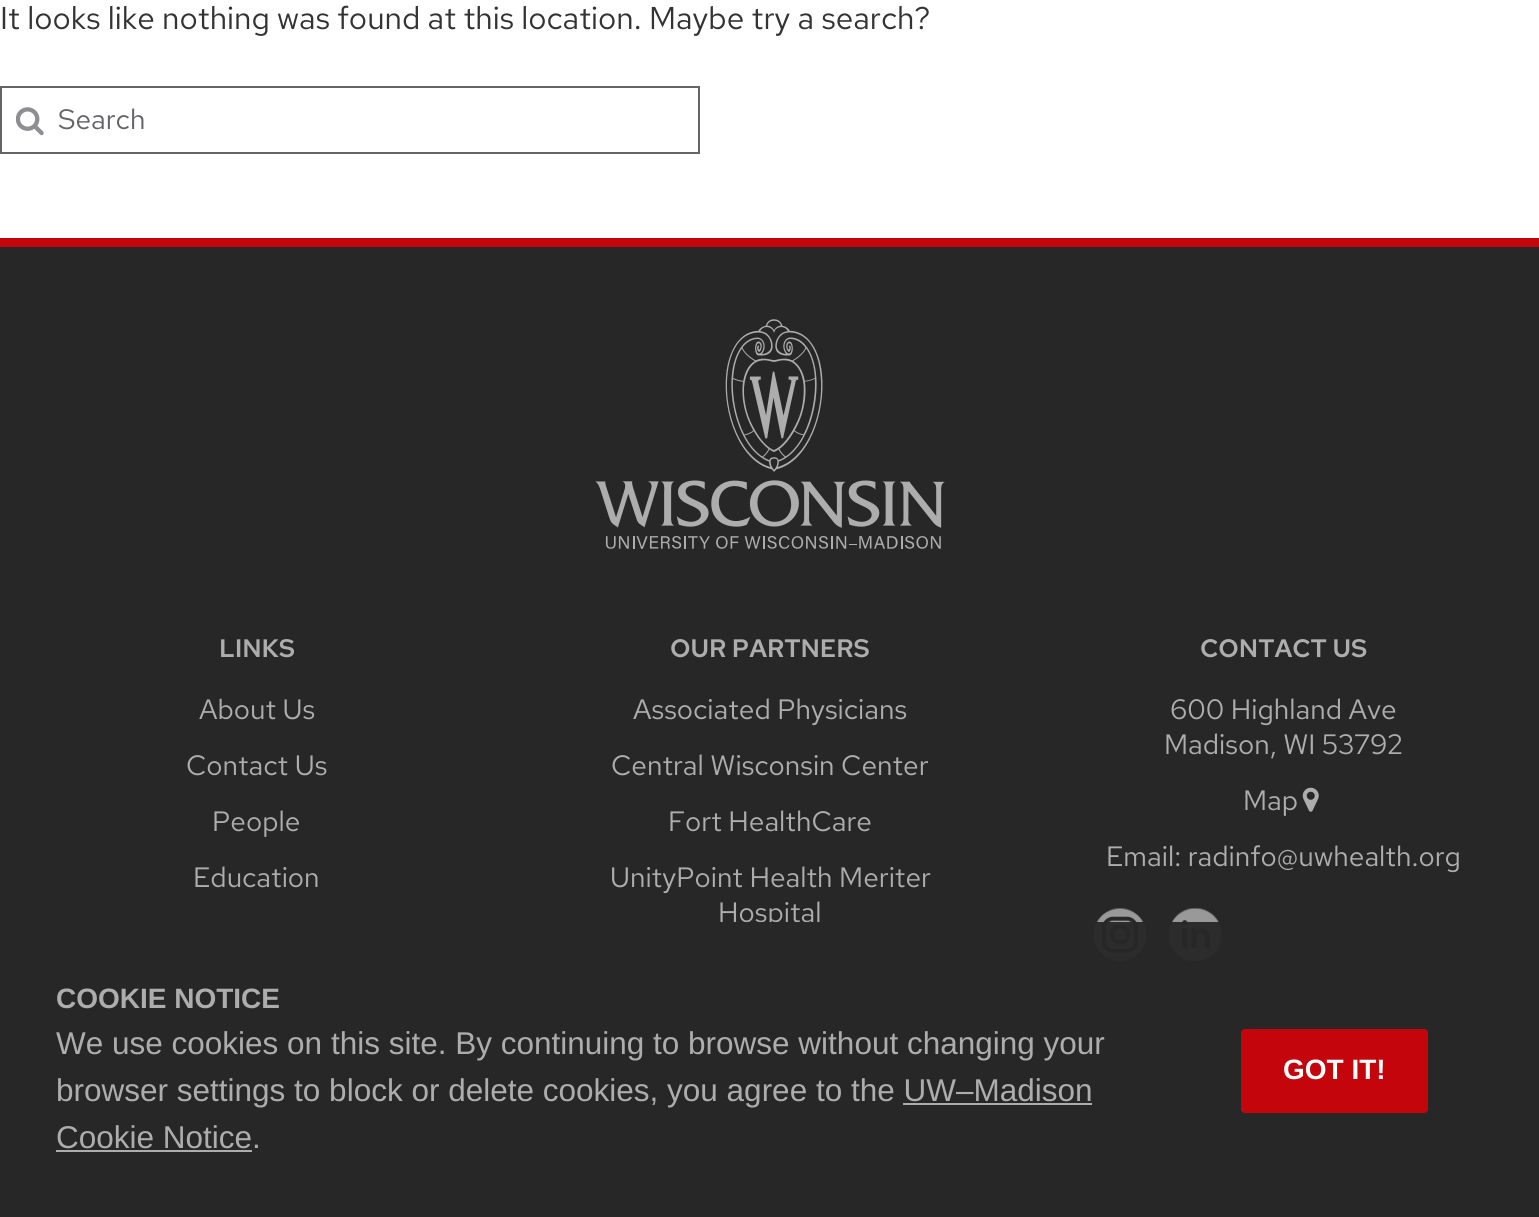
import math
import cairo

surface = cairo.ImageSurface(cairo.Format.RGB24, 1539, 1217)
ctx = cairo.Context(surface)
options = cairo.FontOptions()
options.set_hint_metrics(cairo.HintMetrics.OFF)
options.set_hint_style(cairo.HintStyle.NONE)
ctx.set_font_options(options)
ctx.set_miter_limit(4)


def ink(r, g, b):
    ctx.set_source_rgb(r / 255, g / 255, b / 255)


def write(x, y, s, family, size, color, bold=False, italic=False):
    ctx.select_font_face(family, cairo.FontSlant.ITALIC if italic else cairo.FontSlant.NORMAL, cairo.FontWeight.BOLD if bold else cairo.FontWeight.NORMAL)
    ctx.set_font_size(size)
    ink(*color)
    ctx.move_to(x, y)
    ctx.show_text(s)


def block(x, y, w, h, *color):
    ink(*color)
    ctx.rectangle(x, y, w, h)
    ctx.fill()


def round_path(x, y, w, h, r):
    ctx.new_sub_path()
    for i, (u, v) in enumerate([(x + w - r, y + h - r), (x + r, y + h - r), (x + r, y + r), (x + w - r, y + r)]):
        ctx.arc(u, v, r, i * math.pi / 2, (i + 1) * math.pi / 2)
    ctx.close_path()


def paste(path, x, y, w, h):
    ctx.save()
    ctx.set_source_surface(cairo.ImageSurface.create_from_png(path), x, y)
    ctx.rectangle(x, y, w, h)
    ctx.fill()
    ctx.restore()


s1 = dict(family="Red Hat Text", size=31.5, color=(51, 51, 51))
s2 = dict(family="Red Hat Text", size=28, color=(100, 101, 105))
s3 = dict(family="Red Hat Text SemiBold", size=25.25, color=(173, 173, 173))
s4 = dict(family="Red Hat Text", size=28, color=(173, 173, 173))
s5 = dict(family="Liberation Sans", size=28, color=(173, 173, 173), bold=True)
s6 = dict(family="Liberation Sans", size=31.5, color=(173, 173, 173))
s7 = dict(family="Liberation Sans", size=28, color=(255, 255, 255), bold=True)

ink(255, 255, 255)
ctx.paint()
write(0, 29, "It looks like nothing was found at this location. Maybe try a search?", **s1)
paste("pic1.png", 16, 107, 28, 29)
ctx.rectangle(1, 87, 698, 66)
ink(100, 101, 105)
ctx.stroke()
write(58, 129, "Search", **s2)
block(0, 247, 1539, 970, 40, 39, 40)
block(0, 238, 1539, 9, 197, 5, 12)
paste("pic2.png", 595, 319, 350, 230)
write(219, 657, "LINKS", **s3)
write(199, 719, "About Us", **s4)
write(186, 775, "Contact Us", **s4)
write(212, 831, "People", **s4)
write(193, 887, "Education", **s4)
write(670, 657, "OUR PARTNERS", **s3)
write(633, 719, "Associated Physicians", **s4)
write(611, 775, "Central Wisconsin Center", **s4)
write(668, 831, "Fort HealthCare", **s4)
write(610, 887, "UnityPoint Health Meriter", **s4)
write(718, 922, "Hospital", **s4)
write(1200, 657, "CONTACT US", **s3)
write(1170, 719, "600 Highland Ave", **s4)
write(1164, 754, "Madison, WI 53792", **s4)
write(1243, 810, "Map", **s4)
paste("pic3.png", 1302, 787, 17, 25)
write(1106, 866, "Email: radinfo@uwhealth.org", **s4)
paste("pic4.png", 1093, 908, 54, 53)
paste("pic5.png", 1169, 908, 53, 53)
ctx.set_source_rgba(0.157, 0.153, 0.157, 0.95)
ctx.rectangle(745, 922, 477, 39)
ctx.fill()
write(56, 1008, "COOKIE NOTICE", **s5)
write(56, 1054, "We use cookies on this site. By continuing to browse without changing your", **s6)
write(56, 1101, "browser settings to block or delete cookies, you agree to the UW–Madison", **s6)
write(56, 1148, "Cookie Notice.", **s6)
block(903, 1103, 189, 2, 173, 173, 173)
block(56, 1150, 196, 2, 173, 173, 173)
ink(197, 5, 12)
round_path(1241, 1029, 187, 84, 4)
ctx.fill()
write(1283, 1079, "GOT IT!", **s7)
surface.write_to_png("screenshot.png")
